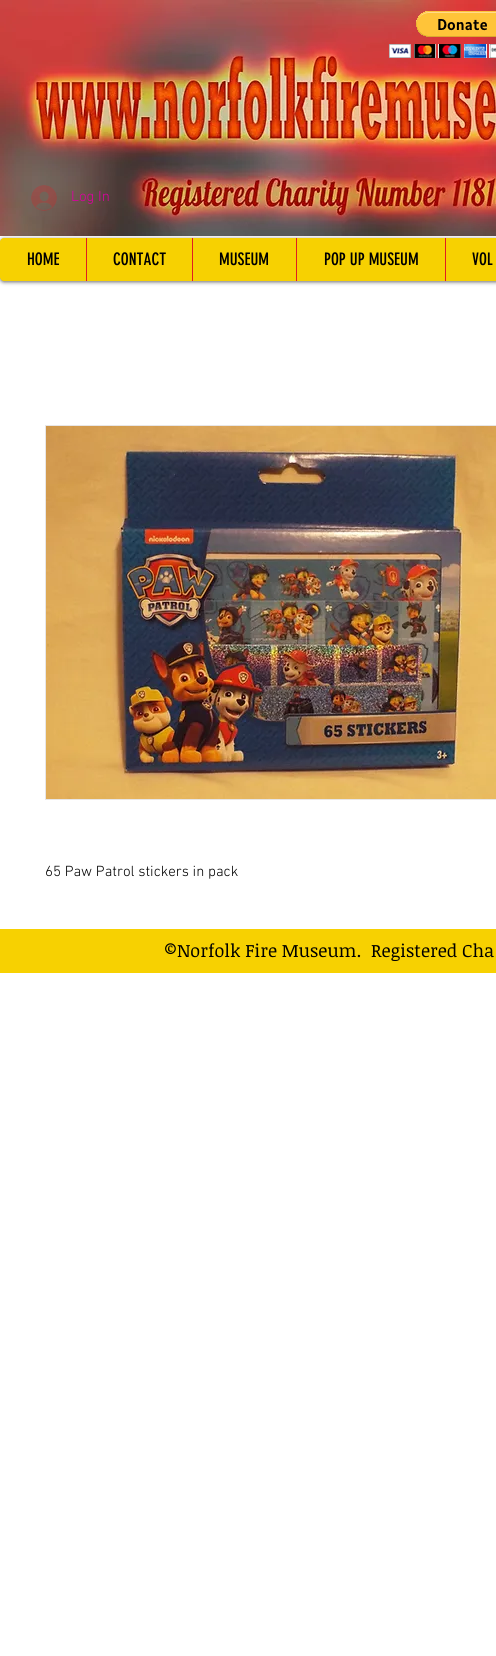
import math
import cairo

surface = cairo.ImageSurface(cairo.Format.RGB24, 496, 1656)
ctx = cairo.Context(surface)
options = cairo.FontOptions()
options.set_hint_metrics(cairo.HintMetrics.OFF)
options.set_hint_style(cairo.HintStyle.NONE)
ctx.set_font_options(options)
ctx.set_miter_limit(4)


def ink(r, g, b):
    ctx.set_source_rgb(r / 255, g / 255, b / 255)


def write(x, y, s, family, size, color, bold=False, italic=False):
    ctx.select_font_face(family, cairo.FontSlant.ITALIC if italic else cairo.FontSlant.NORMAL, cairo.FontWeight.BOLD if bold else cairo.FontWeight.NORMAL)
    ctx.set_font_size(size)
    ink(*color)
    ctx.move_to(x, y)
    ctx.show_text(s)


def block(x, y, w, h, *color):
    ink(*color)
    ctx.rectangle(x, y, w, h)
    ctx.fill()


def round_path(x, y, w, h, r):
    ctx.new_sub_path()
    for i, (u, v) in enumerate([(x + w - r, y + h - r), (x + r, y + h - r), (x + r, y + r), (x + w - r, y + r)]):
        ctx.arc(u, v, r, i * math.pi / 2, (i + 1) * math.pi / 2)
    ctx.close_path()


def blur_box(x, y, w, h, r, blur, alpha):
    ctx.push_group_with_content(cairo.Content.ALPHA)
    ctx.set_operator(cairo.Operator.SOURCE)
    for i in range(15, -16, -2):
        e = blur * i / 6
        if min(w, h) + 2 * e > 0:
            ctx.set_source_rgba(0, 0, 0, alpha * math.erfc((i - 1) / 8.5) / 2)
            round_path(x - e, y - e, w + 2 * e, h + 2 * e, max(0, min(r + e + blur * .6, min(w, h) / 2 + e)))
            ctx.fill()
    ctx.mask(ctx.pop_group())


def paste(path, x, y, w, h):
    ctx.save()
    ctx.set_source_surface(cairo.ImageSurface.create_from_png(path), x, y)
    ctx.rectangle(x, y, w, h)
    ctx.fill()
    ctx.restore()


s1 = dict(family="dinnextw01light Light", size=15, color=(219, 0, 161))
s2 = dict(family="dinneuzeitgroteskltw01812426", size=17, color=(0, 0, 0))
s3 = dict(family="dinnextw01light Light", size=15, color=(0, 0, 0))
s4 = dict(family="Noticia Text", size=18, color=(0, 0, 0))

ink(255, 255, 255)
ctx.paint()
paste("pic1.png", 0, 0, 496, 236)
paste("pic2.png", 389, 11, 107, 47)
paste("pic3.png", 31, 185, 26, 26)
write(71, 201, "Log In", **s1)
ink(0, 0, 0)
blur_box(0, 239, 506, 43, 4, 2, 0.6)
ink(247, 209, 1)
round_path(0, 238, 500, 43, 4)
ctx.fill()
write(27, 265, "HOME", **s2)
block(86, 238, 1, 43, 226, 28, 33)
write(113, 265, "CONTACT", **s2)
block(192, 238, 1, 43, 226, 28, 33)
write(219, 265, "MUSEUM", **s2)
block(296, 238, 1, 43, 226, 28, 33)
write(324, 265, "POP UP MUSEUM", **s2)
block(445, 238, 1, 43, 226, 28, 33)
write(472, 265, "VOL", **s2)
ctx.rectangle(45.5, 425.5, 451, 374)
ink(232, 230, 230)
ctx.set_line_width(1)
ctx.stroke()
paste("pic4.png", 46, 426, 450, 373)
write(45, 876, "65 Paw Patrol stickers in pack", **s3)
block(0, 929, 496, 44, 247, 209, 1)
write(164, 957, "©Norfolk Fire Museum.  Registered Cha", **s4)
surface.write_to_png("screenshot.png")
